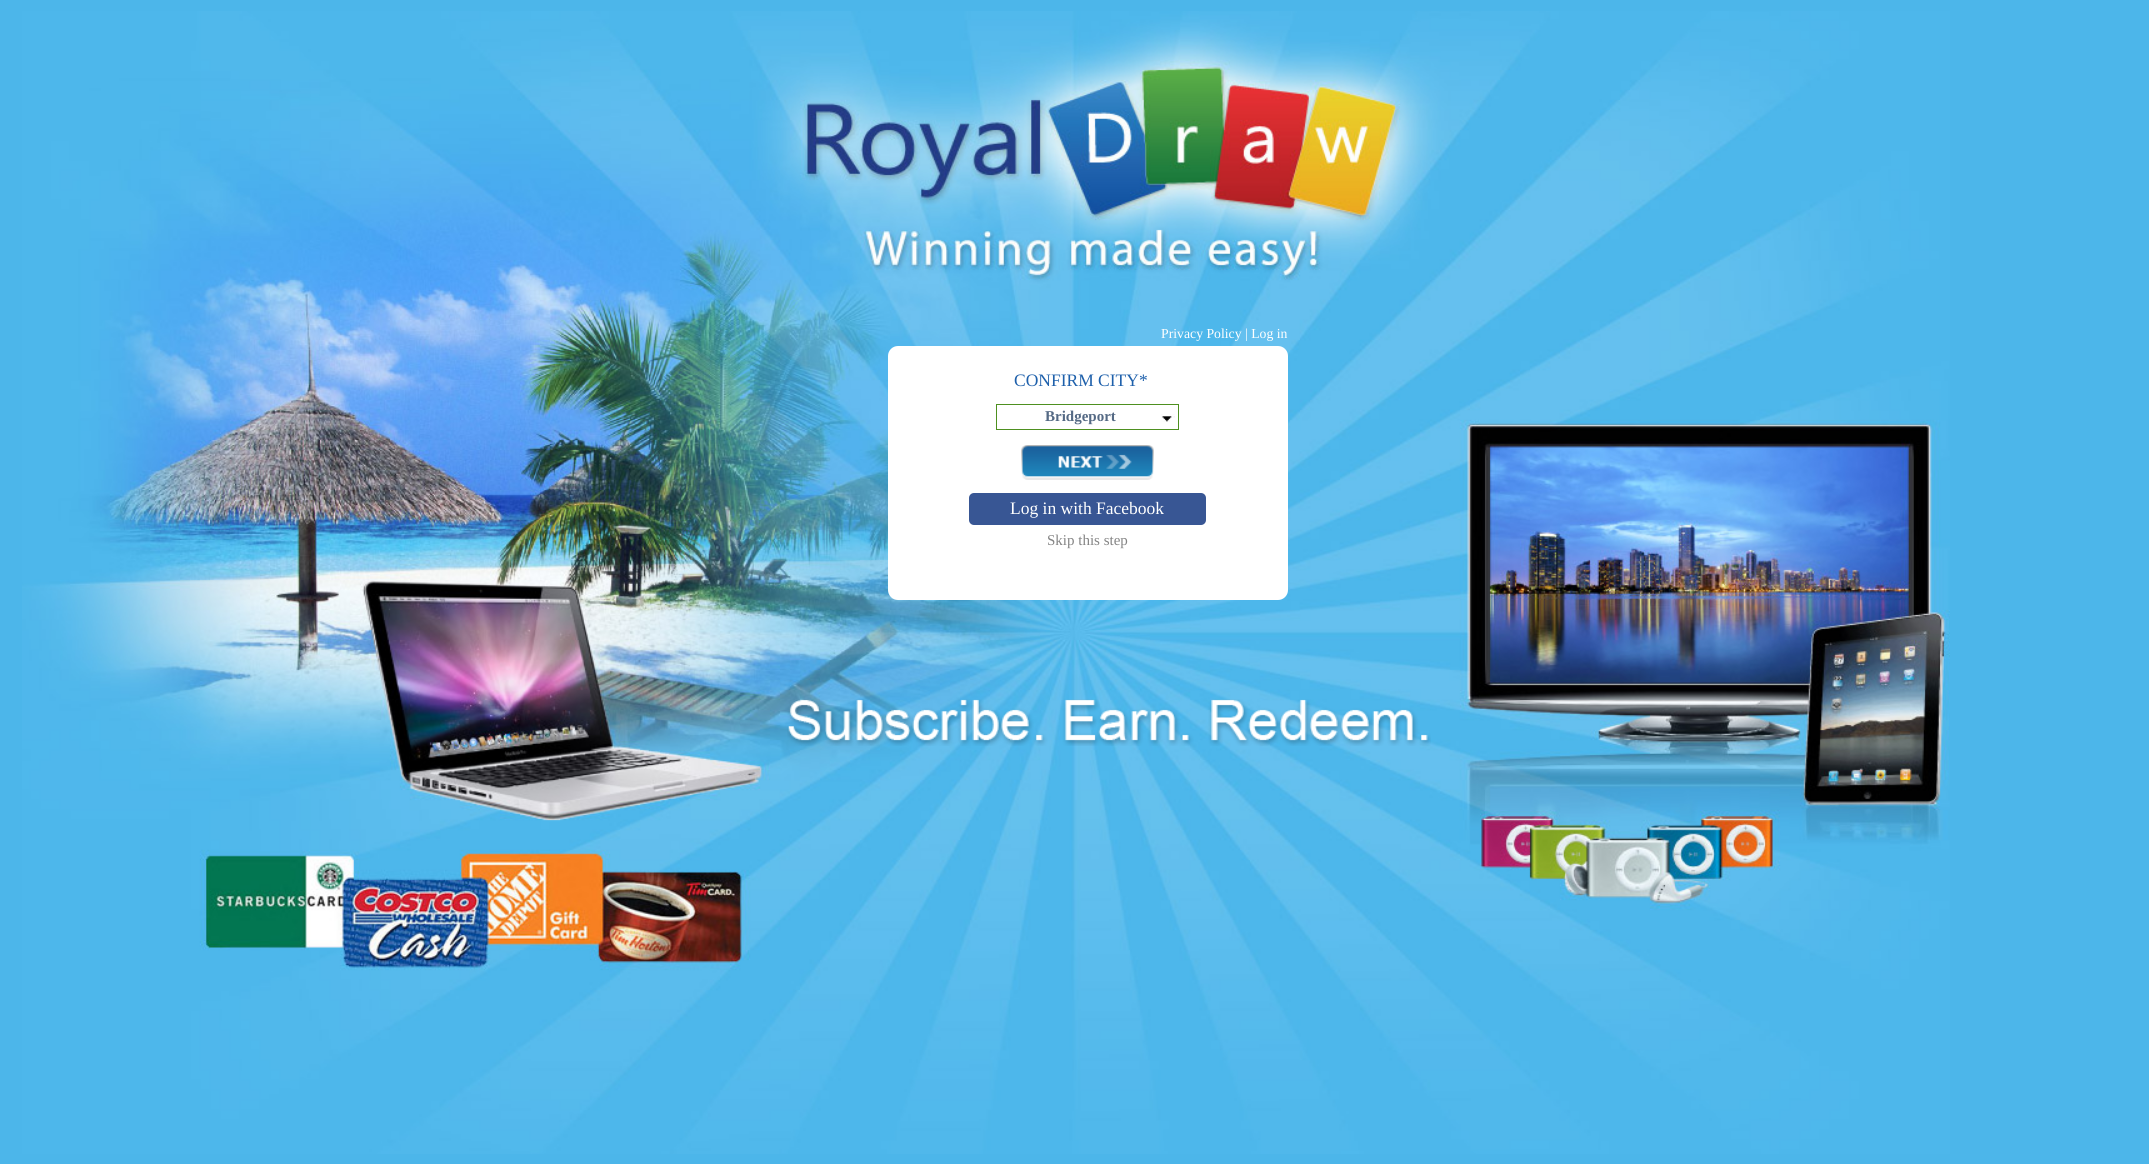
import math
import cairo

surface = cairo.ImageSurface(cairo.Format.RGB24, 2149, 1164)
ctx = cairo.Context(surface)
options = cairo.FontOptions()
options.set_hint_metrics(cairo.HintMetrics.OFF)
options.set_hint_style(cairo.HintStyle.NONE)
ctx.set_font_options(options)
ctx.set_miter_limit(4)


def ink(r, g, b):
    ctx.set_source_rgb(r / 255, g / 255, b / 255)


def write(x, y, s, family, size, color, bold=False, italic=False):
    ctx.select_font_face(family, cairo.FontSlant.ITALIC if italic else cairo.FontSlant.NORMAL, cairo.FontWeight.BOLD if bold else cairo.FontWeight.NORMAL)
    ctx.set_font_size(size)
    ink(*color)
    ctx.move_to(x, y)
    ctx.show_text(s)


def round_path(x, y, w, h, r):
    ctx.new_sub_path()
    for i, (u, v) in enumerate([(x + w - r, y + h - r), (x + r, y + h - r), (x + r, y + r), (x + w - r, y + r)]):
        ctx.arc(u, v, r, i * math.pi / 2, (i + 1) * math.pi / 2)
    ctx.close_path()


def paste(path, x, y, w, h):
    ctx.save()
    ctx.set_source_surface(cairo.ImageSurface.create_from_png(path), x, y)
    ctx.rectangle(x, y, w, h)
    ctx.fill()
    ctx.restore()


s1 = dict(family="Liberation Serif", size=13.75, color=(255, 255, 255))
s2 = dict(family="Liberation Serif", size=17.5, color=(30, 96, 171))
s3 = dict(family="Liberation Serif", size=15, color=(84, 105, 132), bold=True)
s4 = dict(family="Liberation Serif", size=17.5, color=(255, 255, 255))
s5 = dict(family="Liberation Serif", size=15, color=(132, 132, 132))

ink(76, 182, 234)
ctx.paint()
paste("pic1.png", 22, 11, 1928, 1143)
write(1161, 338, "Privacy Policy | Log in", **s1)
round_path(888, 346, 400, 254, 10)
ctx.fill()
write(1014, 386, "CONFIRM CITY*", **s2)
ctx.rectangle(996.5, 404.5, 182, 25)
ink(78, 144, 32)
ctx.set_line_width(1)
ctx.stroke()
write(1045, 421, "Bridgeport", **s3)
paste("pic2.png", 1161, 414, 14, 8)
paste("pic3.png", 1021, 445, 133, 35)
ink(56, 86, 148)
round_path(969, 493, 237, 32, 5)
ctx.fill()
write(1010, 514, "Log in with Facebook", **s4)
write(1047, 545, "Skip this step", **s5)
paste("pic4.png", 787, 699, 644, 47)
surface.write_to_png("screenshot.png")
